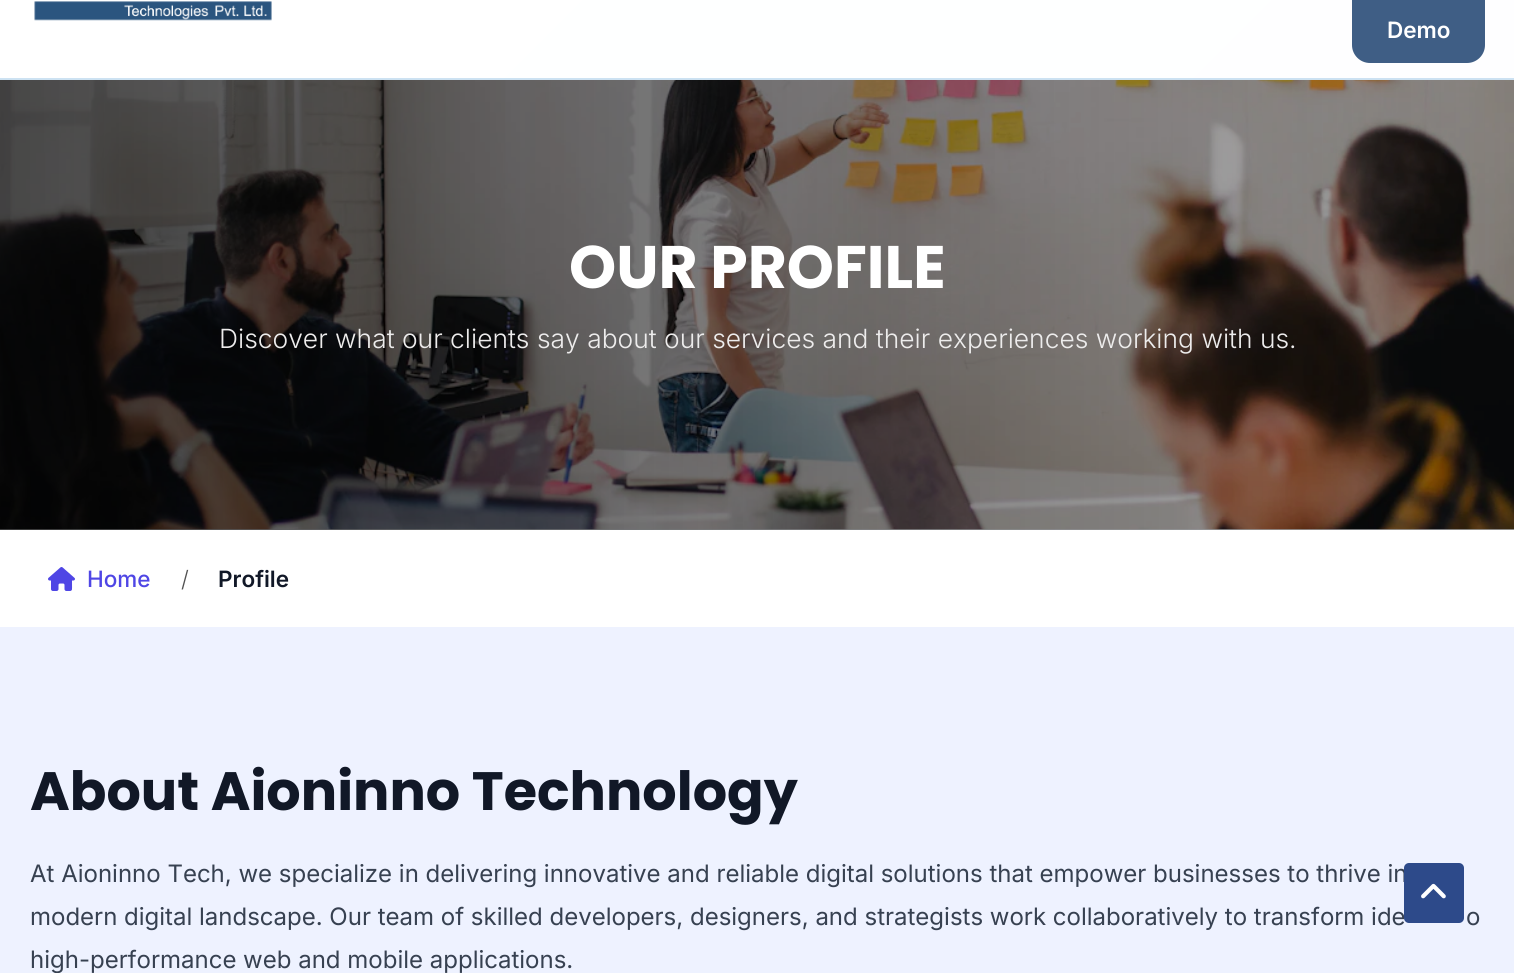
import math
import cairo

surface = cairo.ImageSurface(cairo.Format.RGB24, 1514, 973)
ctx = cairo.Context(surface)
options = cairo.FontOptions()
options.set_hint_metrics(cairo.HintMetrics.OFF)
options.set_hint_style(cairo.HintStyle.NONE)
ctx.set_font_options(options)
ctx.set_miter_limit(4)


def ink(r, g, b):
    ctx.set_source_rgb(r / 255, g / 255, b / 255)


def write(x, y, s, family, size, color, bold=False, italic=False):
    ctx.select_font_face(family, cairo.FontSlant.ITALIC if italic else cairo.FontSlant.NORMAL, cairo.FontWeight.BOLD if bold else cairo.FontWeight.NORMAL)
    ctx.set_font_size(size)
    ink(*color)
    ctx.move_to(x, y)
    ctx.show_text(s)


def block(x, y, w, h, *color):
    ink(*color)
    ctx.rectangle(x, y, w, h)
    ctx.fill()


def round_path(x, y, w, h, r):
    ctx.new_sub_path()
    for i, (u, v) in enumerate([(x + w - r, y + h - r), (x + r, y + h - r), (x + r, y + r), (x + w - r, y + r)]):
        ctx.arc(u, v, r, i * math.pi / 2, (i + 1) * math.pi / 2)
    ctx.close_path()


def paste(path, x, y, w, h):
    ctx.save()
    ctx.set_source_surface(cairo.ImageSurface.create_from_png(path), x, y)
    ctx.rectangle(x, y, w, h)
    ctx.fill()
    ctx.restore()


s1 = dict(family="Inter SemiBold", size=22.5, color=(255, 255, 255))
s2 = dict(family="Poppins", size=60, color=(255, 255, 255), bold=True)
s3 = dict(family="Inter Light", size=26.4, color=(237, 236, 236))
s4 = dict(family="Inter Medium", size=22.5, color=(79, 70, 229))
s5 = dict(family="Inter Light", size=22.5, color=(82, 82, 82))
s6 = dict(family="Inter SemiBold", size=22.5, color=(17, 24, 39))
s7 = dict(family="Poppins", size=54, color=(17, 24, 39), bold=True)
s8 = dict(family="Inter", size=24, color=(55, 65, 81))

ink(255, 255, 255)
ctx.paint()
gradient = cairo.LinearGradient(-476, 254, 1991, 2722)
gradient.add_color_stop_rgba(0, 0.973, 0.98, 0.988, 1)
gradient.add_color_stop_rgba(1, 0.886, 0.91, 0.941, 1)
ctx.set_source(gradient)
ctx.rectangle(0, 0, 1514, 530)
ctx.fill()
paste("pic2.png", 0, 79, 1514, 451)
ctx.set_source_rgba(1, 1, 1, 0.95)
ctx.rectangle(0, 0, 1514, 80)
ctx.fill()
ctx.set_source_rgba(0.227, 0.553, 0.8, 0.25)
ctx.rectangle(0, 78, 1514, 2)
ctx.fill()
paste("pic1.png", 34, 1, 238, 20)
ink(63, 94, 133)
round_path(1352, -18, 133, 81, 18)
ctx.fill()
write(1387, 38, "Demo", **s1)
gradient = cairo.LinearGradient(0, 305, 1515, 304)
gradient.add_color_stop_rgba(0, 0, 0, 0, 0.7)
gradient.add_color_stop_rgba(1, 0, 0, 0, 0.3)
ctx.set_source(gradient)
ctx.rectangle(0, 80, 1514, 450)
ctx.fill()
write(569, 288, "OUR PROFILE", **s2)
write(219, 348, "Discover what our clients say about our services and their experiences working with us.", **s3)
paste("pic3.png", 48, 567, 27, 24)
write(87, 587, "Home", **s4)
write(181, 587, "/", **s5)
write(218, 587, "Profile", **s6)
block(0, 627, 1514, 346, 238, 242, 255)
write(30, 810, "About Aioninno Technology", **s7)
write(30, 882, "At Aioninno Tech, we specialize in delivering innovative and reliable digital solutions that empower businesses to thrive in", **s8)
write(30, 925, "modern digital landscape. Our team of skilled developers, designers, and strategists work collaboratively to transform ide", **s8)
write(1466, 925, "o", **s8)
write(30, 968, "high-performance web and mobile applications.", **s8)
ink(45, 74, 138)
round_path(1404, 863, 60, 60, 5)
ctx.fill()
paste("pic4.png", 1421, 883, 25, 16)
surface.write_to_png("screenshot.png")
